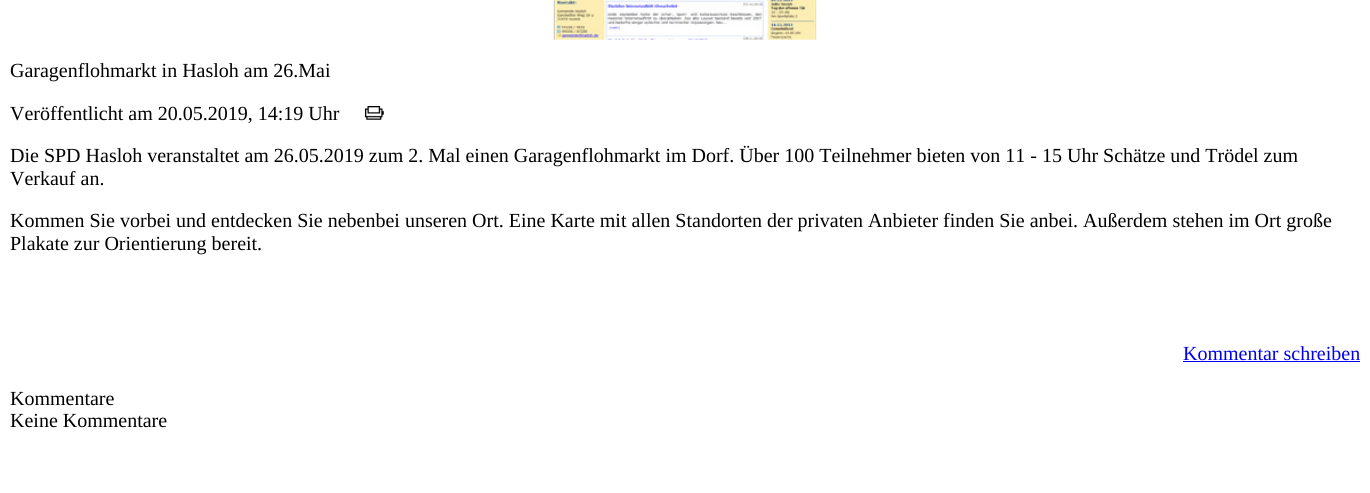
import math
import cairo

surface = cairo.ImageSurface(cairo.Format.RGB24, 1370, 493)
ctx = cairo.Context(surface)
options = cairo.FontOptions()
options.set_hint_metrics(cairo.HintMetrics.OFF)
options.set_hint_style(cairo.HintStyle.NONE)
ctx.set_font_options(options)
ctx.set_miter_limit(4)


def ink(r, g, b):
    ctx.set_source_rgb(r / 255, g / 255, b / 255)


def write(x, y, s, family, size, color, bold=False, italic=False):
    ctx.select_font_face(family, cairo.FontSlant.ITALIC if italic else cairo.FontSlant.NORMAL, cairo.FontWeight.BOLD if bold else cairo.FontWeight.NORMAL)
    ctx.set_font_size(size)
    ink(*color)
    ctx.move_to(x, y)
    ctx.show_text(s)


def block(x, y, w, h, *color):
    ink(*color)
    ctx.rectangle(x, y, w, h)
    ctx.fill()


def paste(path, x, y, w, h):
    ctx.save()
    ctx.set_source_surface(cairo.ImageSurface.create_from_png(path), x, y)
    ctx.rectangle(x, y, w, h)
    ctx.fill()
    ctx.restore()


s1 = dict(family="Liberation Serif", size=20, color=(0, 0, 0))
s2 = dict(family="Liberation Serif", size=20, color=(0, 0, 238))

ink(255, 255, 255)
ctx.paint()
paste("pic1.png", 553, 0, 264, 40)
write(10, 77, "Garagenflohmarkt in Hasloh am 26.Mai", **s1)
write(10, 120, "Veröffentlicht am 20.05.2019, 14:19 Uhr", **s1)
paste("pic2.png", 365, 106, 19, 14)
write(10, 162, "Die SPD Hasloh veranstaltet am 26.05.2019 zum 2. Mal einen Garagenflohmarkt im Dorf. Über 100 Teilnehmer bieten von 11 - 15 Uhr Schätze und Trödel zum", **s1)
write(10, 185, "Verkauf an.", **s1)
write(10, 227, "Kommen Sie vorbei und entdecken Sie nebenbei unseren Ort. Eine Karte mit allen Standorten der privaten Anbieter finden Sie anbei. Außerdem stehen im Ort große", **s1)
write(10, 250, "Plakate zur Orientierung bereit.", **s1)
write(1183, 360, "Kommentar schreiben", **s2)
block(1183, 361, 177, 1, 0, 0, 238)
write(10, 405, "Kommentare", **s1)
write(10, 427, "Keine Kommentare", **s1)
surface.write_to_png("screenshot.png")
